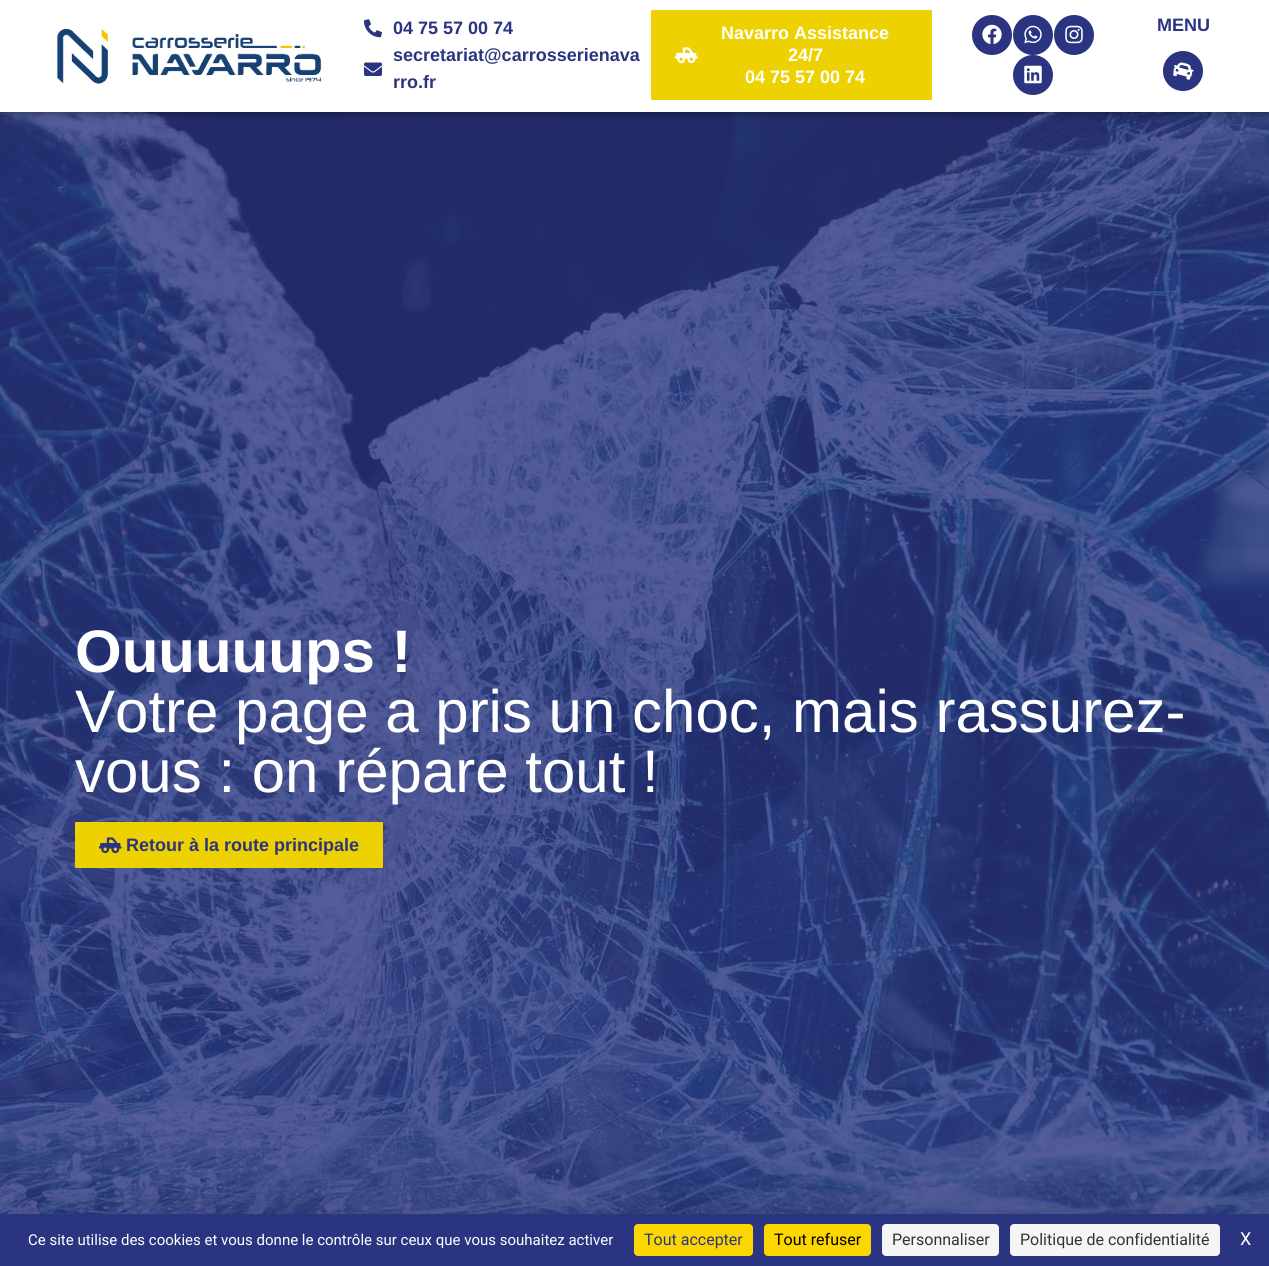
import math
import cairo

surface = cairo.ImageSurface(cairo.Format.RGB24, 1269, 1266)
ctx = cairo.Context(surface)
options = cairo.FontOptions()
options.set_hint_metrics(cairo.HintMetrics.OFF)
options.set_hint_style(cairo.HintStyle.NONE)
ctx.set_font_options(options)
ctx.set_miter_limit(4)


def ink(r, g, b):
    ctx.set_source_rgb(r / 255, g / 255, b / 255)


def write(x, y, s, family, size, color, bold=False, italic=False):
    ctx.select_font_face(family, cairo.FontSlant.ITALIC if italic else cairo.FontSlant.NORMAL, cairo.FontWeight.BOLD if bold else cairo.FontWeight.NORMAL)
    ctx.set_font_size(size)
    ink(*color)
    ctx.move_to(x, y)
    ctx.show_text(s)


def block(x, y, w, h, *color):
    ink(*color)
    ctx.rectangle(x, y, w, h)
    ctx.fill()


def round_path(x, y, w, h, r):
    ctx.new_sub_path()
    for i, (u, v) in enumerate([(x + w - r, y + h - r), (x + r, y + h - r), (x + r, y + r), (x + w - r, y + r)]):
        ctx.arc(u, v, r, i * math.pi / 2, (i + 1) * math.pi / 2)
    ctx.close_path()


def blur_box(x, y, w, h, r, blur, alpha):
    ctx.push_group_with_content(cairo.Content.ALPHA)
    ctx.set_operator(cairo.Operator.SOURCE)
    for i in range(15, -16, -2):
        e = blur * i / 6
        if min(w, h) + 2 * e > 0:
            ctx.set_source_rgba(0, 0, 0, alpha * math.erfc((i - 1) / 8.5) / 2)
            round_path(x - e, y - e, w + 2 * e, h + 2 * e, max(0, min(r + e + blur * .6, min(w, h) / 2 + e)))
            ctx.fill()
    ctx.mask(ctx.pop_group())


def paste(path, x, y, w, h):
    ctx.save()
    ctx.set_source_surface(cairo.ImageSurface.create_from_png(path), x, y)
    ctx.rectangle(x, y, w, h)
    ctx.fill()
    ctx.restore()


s1 = dict(family="Liberation Sans", size=18, color=(43, 52, 129), bold=True)
s2 = dict(family="Liberation Sans", size=18, color=(255, 255, 255), bold=True)
s3 = dict(family="Liberation Sans", size=60, color=(255, 255, 255), bold=True)
s4 = dict(family="Liberation Sans", size=60, color=(255, 255, 255))
s5 = dict(family="Roboto", size=15, color=(255, 255, 255))
s6 = dict(family="Roboto", size=16, color=(43, 52, 129))
s7 = dict(family="Roboto", size=16, color=(0, 0, 0))
s8 = dict(family="Roboto", size=16, color=(51, 51, 51))
s9 = dict(family="Roboto", size=18, color=(255, 255, 255))

ink(255, 255, 255)
ctx.paint()
paste("pic10.png", 0, 112, 1269, 1102)
ctx.save()
ctx.rectangle(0, 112, 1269, 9)
ctx.clip()
ink(0, 0, 0)
blur_box(0, 0, 1269, 112, 0, 5, 0.5)
ctx.restore()
paste("pic1.png", 56, 28, 266, 56)
paste("pic2.png", 364, 19, 18, 19)
write(393, 34, "04 75 57 00 74", **s1)
paste("pic3.png", 364, 62, 18, 14)
write(393, 61, "secretariat@carrosserienava", **s1)
write(393, 88, "rro.fr", **s1)
ink(238, 209, 0)
round_path(651, 10, 281, 90, 1)
ctx.fill()
paste("pic4.png", 675, 47, 23, 17)
write(721, 39, "Navarro Assistance", **s2)
write(788, 61, "24/7", **s2)
write(745, 83, "04 75 57 00 74", **s2)
ink(43, 52, 129)
ctx.new_path()
ctx.arc(992, 35, 20, 0, 2 * math.pi)
ctx.fill()
paste("pic5.png", 982, 24, 20, 20)
ctx.arc(1033, 35, 20, 0, 2 * math.pi)
ctx.fill()
paste("pic6.png", 1024, 25, 18, 19)
ctx.arc(1074, 35, 20, 0, 2 * math.pi)
ctx.fill()
paste("pic7.png", 1065, 25, 18, 19)
ctx.arc(1033, 75, 20, 0, 2 * math.pi)
ctx.fill()
paste("pic8.png", 1024, 65, 18, 19)
write(1157, 31, "MENU", **s1)
ctx.new_path()
ctx.arc(1183, 71, 20, 0, 2 * math.pi)
ctx.fill()
paste("pic9.png", 1173, 62, 21, 18)
write(75, 672, "Ouuuuups !", **s3)
write(75, 732, "Votre page a pris un choc, mais rassurez-", **s4)
write(75, 792, "vous : on répare tout !", **s4)
ink(238, 209, 0)
round_path(75, 822, 308, 46, 1)
ctx.fill()
paste("pic11.png", 99, 837, 23, 17)
write(126, 851, "Retour à la route principale", **s1)
ink(0, 0, 0)
blur_box(0, 1234, 1269, 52, 0, 30, 0.25)
block(0, 1214, 1269, 52, 43, 52, 129)
write(28, 1245, "Ce site utilise des cookies et vous donne le contrôle sur ceux que vous souhaitez activer", **s5)
ink(251, 214, 0)
round_path(634, 1224, 119, 32, 4)
ctx.fill()
write(644, 1245, "Tout accepter", **s6)
ink(251, 214, 0)
round_path(764, 1224, 107, 32, 4)
ctx.fill()
write(774, 1245, "Tout refuser", **s7)
ink(245, 245, 245)
round_path(882, 1224, 117, 32, 4)
ctx.fill()
write(892, 1245, "Personnaliser", **s8)
ink(245, 245, 245)
round_path(1010, 1224, 210, 32, 4)
ctx.fill()
write(1020, 1245, "Politique de confidentialité", **s8)
write(1240, 1245, "X", **s9)
surface.write_to_png("screenshot.png")
